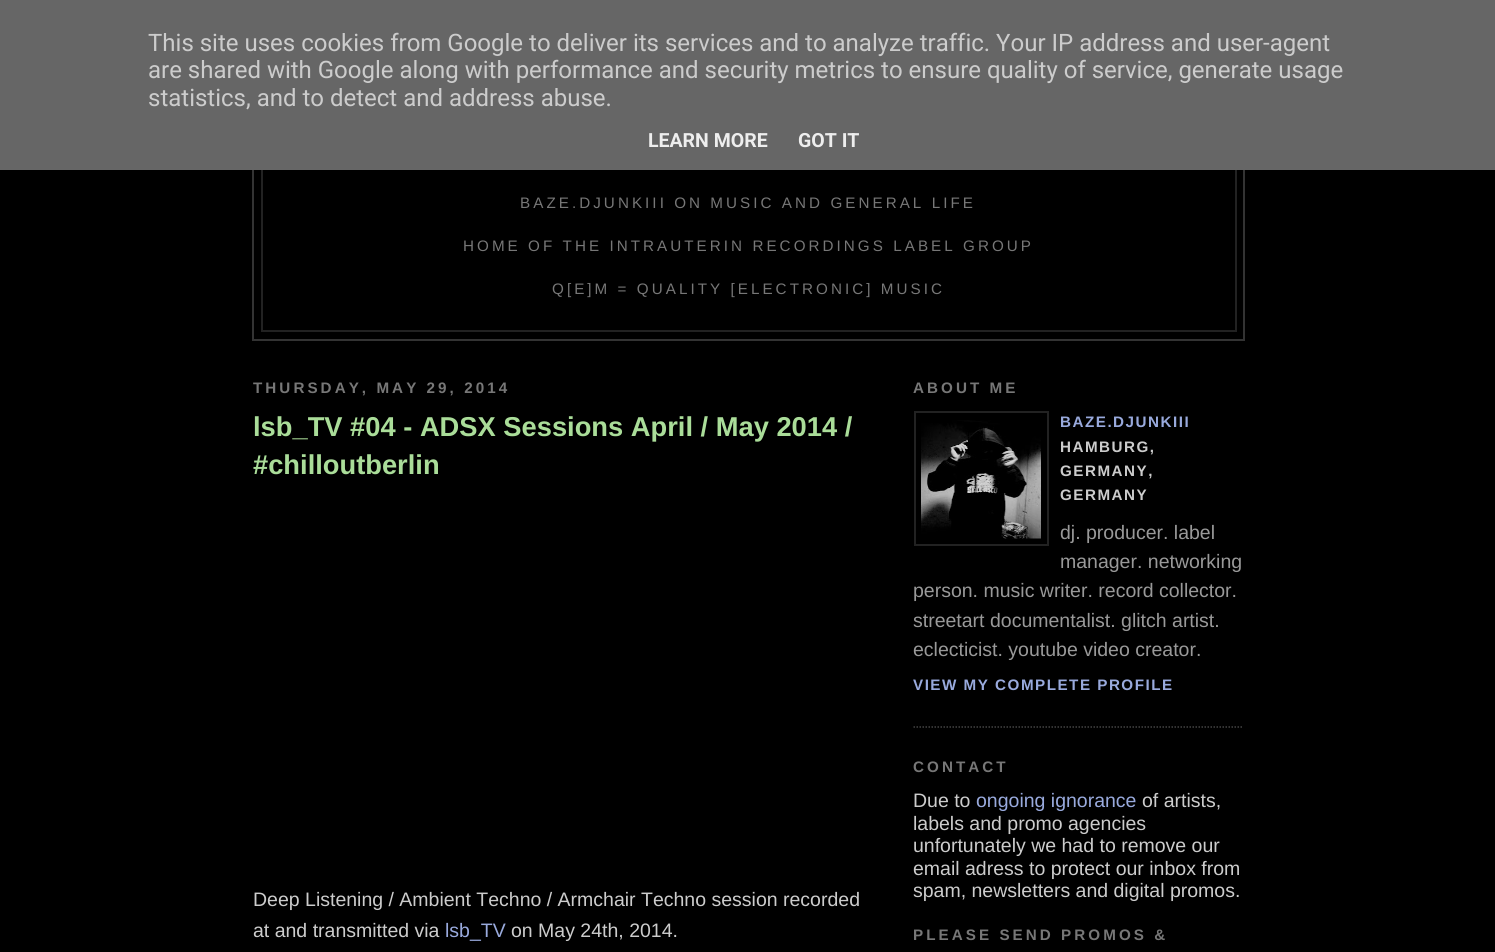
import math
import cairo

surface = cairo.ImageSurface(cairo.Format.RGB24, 1495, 952)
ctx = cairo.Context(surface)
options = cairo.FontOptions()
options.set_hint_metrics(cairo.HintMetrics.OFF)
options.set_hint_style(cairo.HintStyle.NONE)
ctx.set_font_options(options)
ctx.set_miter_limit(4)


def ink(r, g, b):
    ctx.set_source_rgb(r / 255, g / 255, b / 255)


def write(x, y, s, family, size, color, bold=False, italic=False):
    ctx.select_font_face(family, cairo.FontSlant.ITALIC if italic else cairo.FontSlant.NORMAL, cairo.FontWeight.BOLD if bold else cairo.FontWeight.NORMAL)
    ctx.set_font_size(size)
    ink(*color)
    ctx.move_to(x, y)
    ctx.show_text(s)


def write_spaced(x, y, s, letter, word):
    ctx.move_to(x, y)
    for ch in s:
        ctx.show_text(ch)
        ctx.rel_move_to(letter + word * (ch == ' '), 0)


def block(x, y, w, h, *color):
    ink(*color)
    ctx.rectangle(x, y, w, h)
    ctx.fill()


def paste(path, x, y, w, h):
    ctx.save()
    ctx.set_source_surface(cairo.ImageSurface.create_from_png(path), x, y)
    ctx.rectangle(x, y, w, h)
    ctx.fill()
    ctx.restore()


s1 = dict(family="Roboto", size=24, color=(204, 204, 204))
s2 = dict(family="Roboto", size=19.5, color=(238, 238, 238), bold=True)
s3 = dict(family="Liberation Sans", size=27.3, color=(170, 221, 153), bold=True)
s4 = dict(family="Liberation Sans", size=19.5, color=(204, 204, 204))
s5 = dict(family="Liberation Sans", size=19.5, color=(153, 170, 221))
s6 = dict(family="Liberation Sans", size=19.5, color=(153, 153, 153))

ink(0, 0, 0)
ctx.paint()
ctx.rectangle(253, 76, 991, 264)
ink(51, 51, 51)
ctx.stroke()
block(0, 0, 1495, 170, 102, 102, 102)
write(148, 51, "This site uses cookies from Google to deliver its services and to analyze traffic. Your IP address and user-agent", **s1)
write(148, 78, "are shared with Google along with performance and security metrics to ensure quality of service, generate usage", **s1)
write(148, 106, "statistics, and to detect and address abuse.", **s1)
write(648, 147, "LEARN MORE", **s2)
write(798, 147, "GOT IT", **s2)
block(1235, 170, 2, 162, 34, 34, 34)
block(261, 170, 2, 3, 34, 34, 34)
block(261, 330, 975, 2, 34, 34, 34)
block(261, 173, 2, 159, 34, 34, 34)
ctx.select_font_face("Liberation Sans")
ctx.set_font_size(15.2)
ink(119, 119, 119)
write_spaced(520, 208, "BAZE.DJUNKIII ON MUSIC AND GENERAL LIFE", 3.05, 0)
write_spaced(463, 251, "HOME OF THE INTRAUTERIN RECORDINGS LABEL GROUP", 3.05, 0)
write_spaced(552, 294, "Q[E]M = QUALITY [ELECTRONIC] MUSIC", 3.05, 0)
ctx.select_font_face("Liberation Sans", cairo.FontSlant.NORMAL, cairo.FontWeight.BOLD)
write_spaced(253, 393, "THURSDAY, MAY 29, 2014", 3.05, 0)
write(253, 436, "lsb_TV #04 - ADSX Sessions April / May 2014 /", **s3)
write(253, 474, "#chilloutberlin", **s3)
write(253, 906, "Deep Listening / Ambient Techno / Armchair Techno session recorded", **s4)
write(253, 937, "at and transmitted via", **s4)
write(445, 937, "lsb_TV", **s5)
write(511, 937, "on May 24th, 2014.", **s4)
ctx.new_path()
ctx.move_to(913.5, 727)
ctx.line_to(1243.5, 727)
ink(68, 68, 68)
ctx.set_line_width(1.5)
ctx.set_dash([1.5, 1.5])
ctx.stroke()
ctx.select_font_face("Liberation Sans", cairo.FontSlant.NORMAL, cairo.FontWeight.BOLD)
ctx.set_font_size(15.2)
ink(119, 119, 119)
write_spaced(913, 393, "ABOUT ME", 3.05, 0)
ctx.rectangle(915, 412, 133, 133)
ink(34, 34, 34)
ctx.set_line_width(2)
ctx.set_dash([])
ctx.stroke()
paste("pic1.png", 921, 420, 120, 119)
ink(153, 170, 221)
write_spaced(1060, 427, "BAZE.DJUNKIII", 1.5, 0)
ink(204, 204, 204)
write_spaced(1060, 452, "HAMBURG,", 1.5, 0)
write_spaced(1060, 476, "GERMANY,", 1.5, 0)
write_spaced(1060, 500, "GERMANY", 1.5, 0)
write(1060, 539, "dj. producer. label", **s6)
write(1060, 568, "manager. networking", **s6)
write(913, 597, "person. music writer. record collector.", **s6)
write(913, 627, "streetart documentalist. glitch artist.", **s6)
write(913, 656, "eclecticist. youtube video creator.", **s6)
ctx.select_font_face("Liberation Sans", cairo.FontSlant.NORMAL, cairo.FontWeight.BOLD)
ctx.set_font_size(15.2)
ink(153, 170, 221)
write_spaced(913, 690, "VIEW MY COMPLETE PROFILE", 1.5, 0)
ink(119, 119, 119)
write_spaced(913, 772, "CONTACT", 3.05, 0)
write(913, 807, "Due to", **s4)
write(976, 807, "ongoing ignorance", **s5)
write(1142, 807, "of artists,", **s4)
write(913, 830, "labels and promo agencies", **s4)
write(913, 852, "unfortunately we had to remove our", **s4)
write(913, 875, "email adress to protect our inbox from", **s4)
write(913, 897, "spam, newsletters and digital promos.", **s4)
ctx.select_font_face("Liberation Sans", cairo.FontSlant.NORMAL, cairo.FontWeight.BOLD)
ctx.set_font_size(15.2)
ink(119, 119, 119)
write_spaced(913, 940, "PLEASE SEND PROMOS &", 3.05, 0)
surface.write_to_png("screenshot.png")
